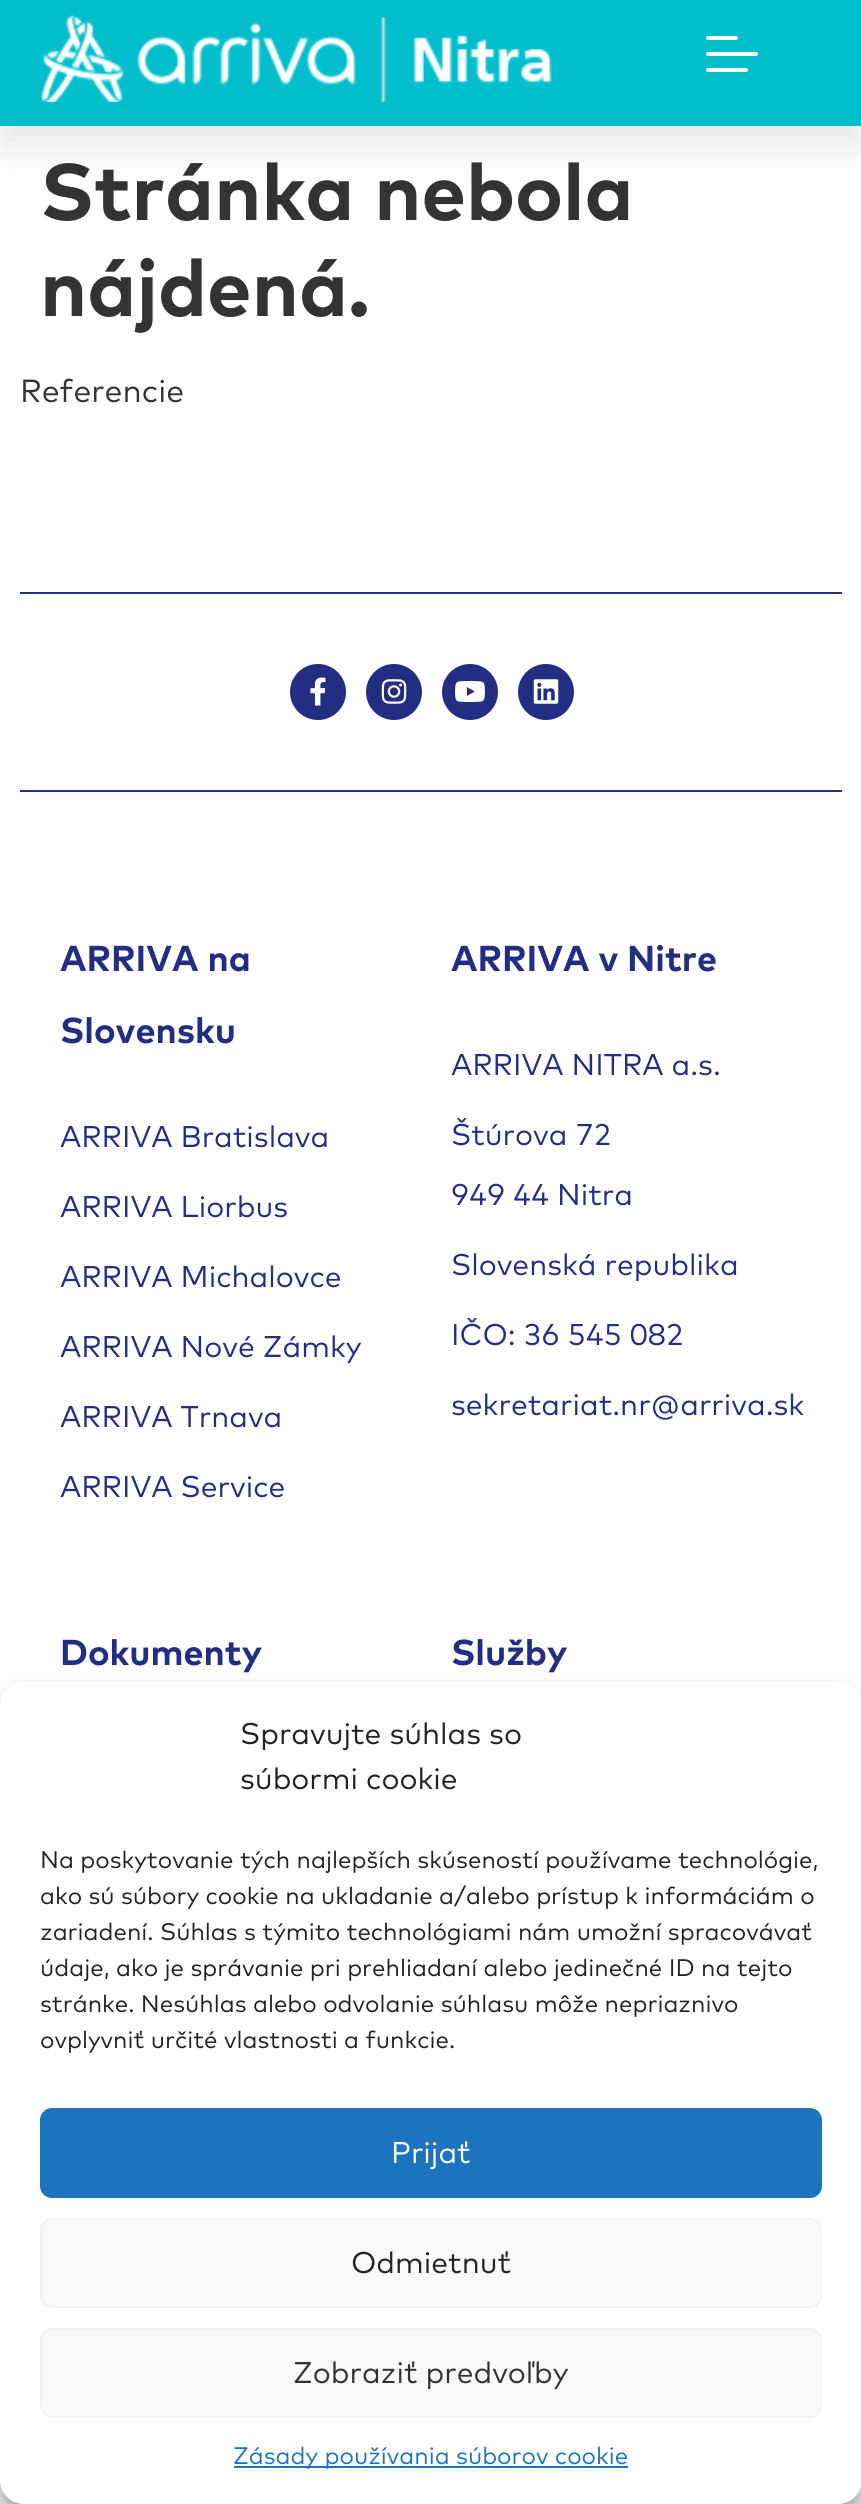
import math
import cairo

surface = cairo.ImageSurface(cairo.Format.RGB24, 861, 2504)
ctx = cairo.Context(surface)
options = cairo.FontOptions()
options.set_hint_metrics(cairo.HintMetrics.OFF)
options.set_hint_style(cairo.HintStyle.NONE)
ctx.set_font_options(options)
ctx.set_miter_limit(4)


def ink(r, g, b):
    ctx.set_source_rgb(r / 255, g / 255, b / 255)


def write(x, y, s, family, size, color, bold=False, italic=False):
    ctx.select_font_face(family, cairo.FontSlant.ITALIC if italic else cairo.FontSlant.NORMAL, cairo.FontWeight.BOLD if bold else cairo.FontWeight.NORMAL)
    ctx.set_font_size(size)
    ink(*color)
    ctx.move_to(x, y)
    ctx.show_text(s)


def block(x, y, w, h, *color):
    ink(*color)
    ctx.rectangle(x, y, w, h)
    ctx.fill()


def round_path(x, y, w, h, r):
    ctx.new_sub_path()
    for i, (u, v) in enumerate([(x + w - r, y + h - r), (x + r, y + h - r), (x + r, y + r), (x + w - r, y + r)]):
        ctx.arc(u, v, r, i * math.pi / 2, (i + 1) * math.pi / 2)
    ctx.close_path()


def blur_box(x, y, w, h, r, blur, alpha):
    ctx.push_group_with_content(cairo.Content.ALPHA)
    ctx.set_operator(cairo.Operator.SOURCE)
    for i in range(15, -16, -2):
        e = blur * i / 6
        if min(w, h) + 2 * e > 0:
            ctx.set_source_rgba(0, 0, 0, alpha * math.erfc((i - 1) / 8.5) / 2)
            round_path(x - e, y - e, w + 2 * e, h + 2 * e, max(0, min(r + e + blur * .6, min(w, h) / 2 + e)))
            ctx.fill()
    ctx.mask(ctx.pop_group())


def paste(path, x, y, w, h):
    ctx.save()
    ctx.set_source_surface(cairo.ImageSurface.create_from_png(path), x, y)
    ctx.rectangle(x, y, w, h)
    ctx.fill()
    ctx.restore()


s1 = dict(family="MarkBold", size=80, color=(51, 51, 51), bold=True)
s2 = dict(family="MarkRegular", size=32, color=(51, 51, 51))
s3 = dict(family="MarkBold", size=36, color=(35, 46, 131), bold=True)
s4 = dict(family="MarkRegular", size=30, color=(35, 46, 131))
s5 = dict(family="MarkRegular", size=30, color=(34, 34, 34))
s6 = dict(family="MarkRegular", size=24, color=(34, 34, 34))
s7 = dict(family="MarkRegular", size=30, color=(255, 255, 255))
s8 = dict(family="MarkRegular", size=30, color=(51, 51, 51))
s9 = dict(family="MarkRegular", size=24, color=(30, 115, 190))

ink(255, 255, 255)
ctx.paint()
ink(0, 0, 0)
blur_box(0, 20, 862, 126, 0, 20, 0.1)
block(0, 0, 861, 126, 0, 190, 204)
paste("pic1.png", 41, 15, 511, 87)
ink(255, 255, 255)
round_path(706, 52, 52, 4, 2)
ctx.fill()
round_path(706, 36, 32, 4, 2)
ctx.fill()
round_path(706, 68, 42, 4, 2)
ctx.fill()
write(40, 220, "Stránka nebola", **s1)
write(40, 316, "nájdená.", **s1)
write(20, 402, "Referencie", **s2)
block(20, 592, 822, 2, 35, 46, 131)
ctx.new_path()
ctx.arc(318, 692, 28, 0, 2 * math.pi)
ctx.fill()
paste("pic2.png", 310, 677, 16, 29)
ctx.arc(394, 692, 28, 0, 2 * math.pi)
ctx.fill()
paste("pic3.png", 381, 679, 26, 25)
ctx.arc(470, 692, 28, 0, 2 * math.pi)
ctx.fill()
paste("pic4.png", 455, 681, 30, 21)
ctx.arc(546, 692, 28, 0, 2 * math.pi)
ctx.fill()
paste("pic5.png", 533, 679, 26, 25)
block(20, 790, 822, 2, 35, 46, 131)
write(60, 971, "ARRIVA na", **s3)
write(60, 1043, "Slovensku", **s3)
write(60, 1147, "ARRIVA Bratislava", **s4)
write(60, 1217, "ARRIVA Liorbus", **s4)
write(60, 1287, "ARRIVA Michalovce", **s4)
write(60, 1357, "ARRIVA Nové Zámky", **s4)
write(60, 1427, "ARRIVA Trnava", **s4)
write(60, 1497, "ARRIVA Service", **s4)
write(451, 971, "ARRIVA v Nitre", **s3)
write(451, 1075, "ARRIVA NITRA a.s.", **s4)
write(451, 1145, "Štúrova 72", **s4)
write(451, 1205, "949 44 Nitra", **s4)
write(451, 1275, "Slovenská republika", **s4)
write(451, 1345, "IČO: 36 545 082", **s4)
write(451, 1415, "sekretariat.nr@arriva.sk", **s4)
write(60, 1665, "Dokumenty", **s3)
write(451, 1665, "Služby", **s3)
ink(0, 0, 0)
blur_box(0, 1694, 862, 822, 24, 6, 0.23)
blur_box(0, 1702, 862, 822, 24, 20, 0.19)
ink(255, 255, 255)
round_path(0, 1682, 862, 822, 24)
ctx.fill()
write(240, 1744, "Spravujte súhlas so", **s5)
write(240, 1789, "súbormi cookie", **s5)
write(40, 1868, "Na poskytovanie tých najlepších skúseností používame technológie,", **s6)
write(40, 1904, "ako sú súbory cookie na ukladanie a/alebo prístup k informáciám o", **s6)
write(40, 1940, "zariadení. Súhlas s týmito technológiami nám umožní spracovávať", **s6)
write(40, 1976, "údaje, ako je správanie pri prehliadaní alebo jedinečné ID na tejto", **s6)
write(40, 2012, "stránke. Nesúhlas alebo odvolanie súhlasu môže nepriaznivo", **s6)
write(40, 2048, "ovplyvniť určité vlastnosti a funkcie.", **s6)
ink(30, 115, 190)
round_path(41, 2109, 780, 88, 11)
ctx.fill_preserve()
ctx.stroke()
write(391, 2163, "Prijať", **s7)
ink(249, 249, 249)
round_path(41, 2219, 780, 88, 11)
ctx.fill_preserve()
ink(242, 242, 242)
ctx.stroke()
write(351, 2273, "Odmietnuť", **s5)
ink(249, 249, 249)
round_path(41, 2329, 780, 88, 11)
ctx.fill_preserve()
ink(242, 242, 242)
ctx.stroke()
write(293, 2383, "Zobraziť predvoľby", **s8)
block(234, 2466, 394, 2, 30, 115, 190)
write(233, 2464, "Zásady používania súborov cookie", **s9)
surface.write_to_png("screenshot.png")
